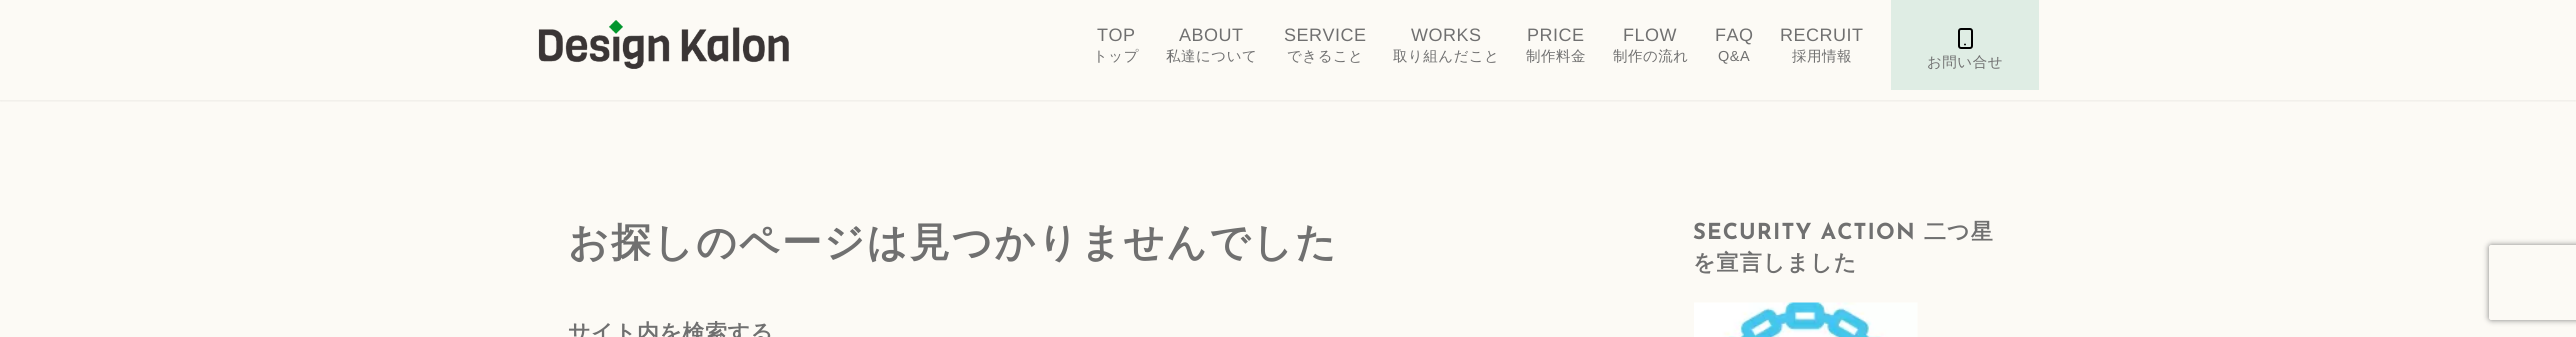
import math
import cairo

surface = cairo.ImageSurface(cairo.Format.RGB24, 2576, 337)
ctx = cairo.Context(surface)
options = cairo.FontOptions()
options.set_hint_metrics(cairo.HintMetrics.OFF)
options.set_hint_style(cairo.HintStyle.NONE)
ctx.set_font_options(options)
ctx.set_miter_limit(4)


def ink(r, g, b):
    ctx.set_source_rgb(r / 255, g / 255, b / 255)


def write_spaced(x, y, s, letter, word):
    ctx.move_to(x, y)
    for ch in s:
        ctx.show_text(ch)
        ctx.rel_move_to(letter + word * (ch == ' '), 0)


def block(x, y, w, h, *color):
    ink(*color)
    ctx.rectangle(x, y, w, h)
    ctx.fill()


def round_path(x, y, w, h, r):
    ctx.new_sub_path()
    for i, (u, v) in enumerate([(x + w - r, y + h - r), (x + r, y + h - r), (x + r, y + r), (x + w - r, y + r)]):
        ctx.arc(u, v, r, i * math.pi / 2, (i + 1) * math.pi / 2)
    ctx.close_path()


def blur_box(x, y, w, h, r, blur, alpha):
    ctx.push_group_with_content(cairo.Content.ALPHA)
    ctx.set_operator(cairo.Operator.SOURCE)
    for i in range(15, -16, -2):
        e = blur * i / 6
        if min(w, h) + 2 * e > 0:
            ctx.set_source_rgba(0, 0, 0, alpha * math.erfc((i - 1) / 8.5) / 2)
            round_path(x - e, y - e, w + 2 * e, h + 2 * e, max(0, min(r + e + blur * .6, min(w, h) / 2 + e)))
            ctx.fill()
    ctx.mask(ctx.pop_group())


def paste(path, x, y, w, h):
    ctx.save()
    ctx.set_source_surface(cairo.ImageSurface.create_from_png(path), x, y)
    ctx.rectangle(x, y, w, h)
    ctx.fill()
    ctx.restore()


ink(252, 250, 245)
ctx.paint()
ctx.save()
ctx.rectangle(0, 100, 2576, 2)
ctx.clip()
ink(0, 0, 0)
blur_box(0, 0, 2576, 100, 0, 2.5, 0.1)
ctx.restore()
paste("pic1.png", 538, 20, 251, 49)
ctx.select_font_face("Liberation Sans")
ctx.set_font_size(18)
ink(112, 112, 112)
write_spaced(1097, 41, "TOP", 0.5, 0)
ctx.select_font_face("WenQuanYi Zen Hei Medium")
ctx.set_font_size(14.5)
write_spaced(1093, 61, "トップ", 0.5, 0)
ctx.select_font_face("Liberation Sans")
ctx.set_font_size(18)
write_spaced(1179, 41, "ABOUT", 0.5, 0)
ctx.select_font_face("WenQuanYi Zen Hei Medium")
ctx.set_font_size(14.5)
write_spaced(1166, 61, "私達について", 0.5, 0)
ctx.select_font_face("Liberation Sans")
ctx.set_font_size(18)
write_spaced(1284, 41, "SERVICE", 0.5, 0)
ctx.select_font_face("WenQuanYi Zen Hei Medium")
ctx.set_font_size(14.5)
write_spaced(1287, 61, "できること", 0.5, 0)
ctx.select_font_face("Liberation Sans")
ctx.set_font_size(18)
write_spaced(1411, 41, "WORKS", 0.5, 0)
ctx.select_font_face("WenQuanYi Zen Hei Medium")
ctx.set_font_size(14.5)
write_spaced(1393, 61, "取り組んだこと", 0.5, 0)
ctx.select_font_face("Liberation Sans")
ctx.set_font_size(18)
write_spaced(1527, 41, "PRICE", 0.5, 0)
ctx.select_font_face("WenQuanYi Zen Hei Medium")
ctx.set_font_size(14.5)
write_spaced(1526, 61, "制作料金", 0.5, 0)
ctx.select_font_face("Liberation Sans")
ctx.set_font_size(18)
write_spaced(1623, 41, "FLOW", 0.5, 0)
ctx.select_font_face("WenQuanYi Zen Hei Medium")
ctx.set_font_size(14.5)
write_spaced(1613, 61, "制作の流れ", 0.5, 0)
ctx.select_font_face("Liberation Sans")
ctx.set_font_size(18)
write_spaced(1715, 41, "FAQ", 0.5, 0)
ctx.set_font_size(14.5)
write_spaced(1718, 61, "Q&A", 0.5, 0)
ctx.set_font_size(18)
write_spaced(1780, 41, "RECRUIT", 0.5, 0)
ctx.select_font_face("WenQuanYi Zen Hei Medium")
ctx.set_font_size(14.5)
write_spaced(1792, 61, "採用情報", 0.5, 0)
block(1891, 0, 148, 90, 223, 237, 228)
round_path(1959, 29, 13, 19, 2)
ink(0, 0, 0)
ctx.stroke()
ctx.new_path()
ctx.move_to(1965, 44.5)
ctx.line_to(1965, 44.5)
ctx.set_line_width(1.9)
ctx.set_line_cap(cairo.LineCap.ROUND)
ctx.set_line_join(cairo.LineJoin.ROUND)
ctx.stroke()
ink(112, 112, 112)
write_spaced(1927, 67, "お問い合せ", 0.5, 0)
ctx.select_font_face("WenQuanYi Zen Hei", cairo.FontSlant.NORMAL, cairo.FontWeight.BOLD)
ctx.set_font_size(40)
write_spaced(568, 256, "お探しのページは見つかりませんでした", 2, 0)
ctx.set_font_size(22)
write_spaced(568, 340, "サイト内を検索する", 0.5, 0)
ctx.select_font_face("Josefin Sans", cairo.FontSlant.NORMAL, cairo.FontWeight.BOLD)
write_spaced(1693, 239, "SECURITY ACTION", 1.1, 0)
ctx.select_font_face("WenQuanYi Zen Hei", cairo.FontSlant.NORMAL, cairo.FontWeight.BOLD)
write_spaced(1924, 239, "二つ星", 1.1, 0)
write_spaced(1693, 270, "を宣言しました", 1.1, 0)
paste("pic2.png", 1694, 302, 224, 35)
ctx.save()
ctx.set_fill_rule(cairo.FillRule.EVEN_ODD)
ctx.new_path()
ctx.move_to(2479, 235)
ctx.line_to(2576, 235)
ctx.line_to(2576, 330)
ctx.line_to(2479, 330)
ctx.close_path()
ctx.move_to(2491.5, 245)
ctx.line_to(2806.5, 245)
ctx.curve_to(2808, 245, 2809, 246, 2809, 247.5)
ctx.line_to(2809, 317.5)
ctx.curve_to(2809, 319, 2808, 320, 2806.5, 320)
ctx.line_to(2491.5, 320)
ctx.curve_to(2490, 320, 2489, 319, 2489, 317.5)
ctx.line_to(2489, 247.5)
ctx.curve_to(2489, 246, 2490, 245, 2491.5, 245)
ctx.close_path()
ctx.clip()
ink(128, 128, 128)
blur_box(2489, 245, 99, 75, 2.5, 3, 1)
ctx.restore()
surface.write_to_png("screenshot.png")
